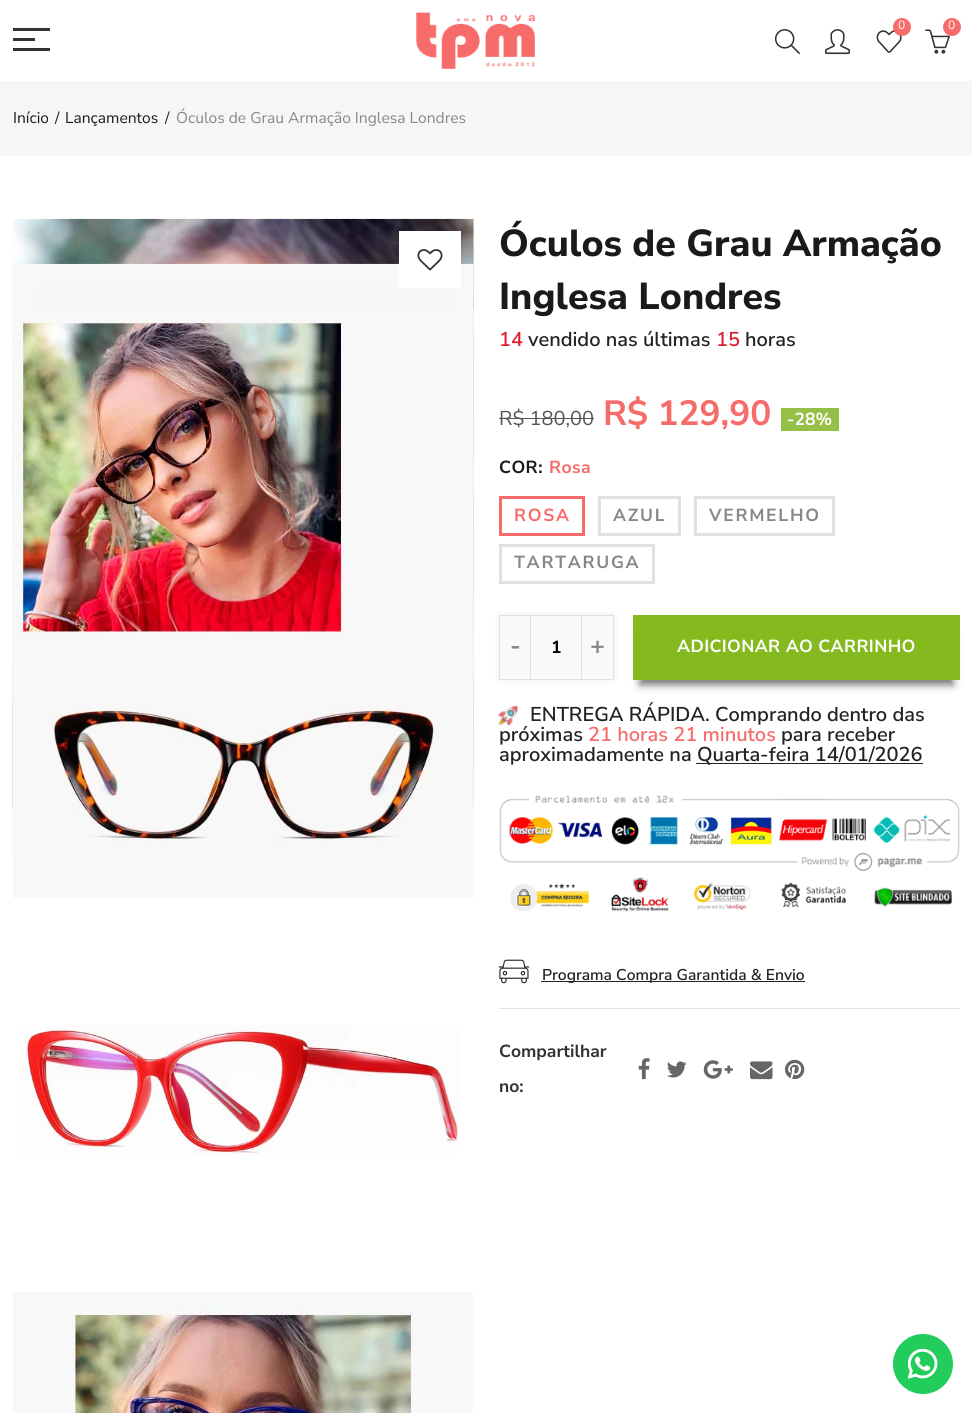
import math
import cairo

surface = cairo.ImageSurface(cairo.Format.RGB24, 972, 1413)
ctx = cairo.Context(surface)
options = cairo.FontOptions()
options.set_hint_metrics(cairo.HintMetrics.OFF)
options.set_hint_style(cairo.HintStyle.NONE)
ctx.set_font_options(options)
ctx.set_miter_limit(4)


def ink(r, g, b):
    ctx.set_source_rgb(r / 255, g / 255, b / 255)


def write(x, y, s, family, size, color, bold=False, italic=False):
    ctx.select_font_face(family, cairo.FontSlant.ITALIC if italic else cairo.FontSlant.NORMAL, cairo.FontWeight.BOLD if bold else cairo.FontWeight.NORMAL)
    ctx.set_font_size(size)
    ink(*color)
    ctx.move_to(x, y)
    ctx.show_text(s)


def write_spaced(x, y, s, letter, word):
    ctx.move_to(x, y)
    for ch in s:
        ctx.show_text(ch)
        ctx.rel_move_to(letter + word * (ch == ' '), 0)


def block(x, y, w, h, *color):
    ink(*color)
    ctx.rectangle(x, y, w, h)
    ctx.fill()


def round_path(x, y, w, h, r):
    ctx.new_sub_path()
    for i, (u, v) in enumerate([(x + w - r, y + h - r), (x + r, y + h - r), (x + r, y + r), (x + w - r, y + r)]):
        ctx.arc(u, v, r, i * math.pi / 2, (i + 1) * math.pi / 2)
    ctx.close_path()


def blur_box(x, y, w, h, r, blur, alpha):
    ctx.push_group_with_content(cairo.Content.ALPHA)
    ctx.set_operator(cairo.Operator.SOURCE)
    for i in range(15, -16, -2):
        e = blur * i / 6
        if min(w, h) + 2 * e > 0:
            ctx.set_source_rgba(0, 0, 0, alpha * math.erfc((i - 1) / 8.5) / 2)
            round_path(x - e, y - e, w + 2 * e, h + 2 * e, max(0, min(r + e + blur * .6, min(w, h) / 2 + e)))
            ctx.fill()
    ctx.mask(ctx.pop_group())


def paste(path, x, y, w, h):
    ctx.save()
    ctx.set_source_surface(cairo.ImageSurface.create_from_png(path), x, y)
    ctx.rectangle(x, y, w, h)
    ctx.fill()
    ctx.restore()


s1 = dict(family="Nunito Sans", size=12, color=(255, 255, 255))
s2 = dict(family="Nunito Sans", size=15.6, color=(27, 25, 25))
s3 = dict(family="Nunito Sans", size=15.6, color=(135, 135, 135))
s4 = dict(family="Nunito Sans ExtraBold", size=37.5, color=(27, 25, 25))
s5 = dict(family="Nunito Sans SemiBold", size=20, color=(221, 30, 49))
s6 = dict(family="Nunito Sans SemiBold", size=20, color=(34, 34, 34))
s7 = dict(family="Nunito Sans", size=20, color=(85, 85, 85))
s8 = dict(family="Nunito Sans", size=35, color=(247, 107, 106), bold=True)
s9 = dict(family="Nunito Sans", size=17.5, color=(255, 255, 255), bold=True)
s10 = dict(family="Nunito Sans", size=25, color=(135, 135, 135), bold=True)
s11 = dict(family="Nunito Sans", size=17.5, color=(0, 0, 0), bold=True)
s12 = dict(family="Nunito Sans SemiBold", size=20, color=(247, 107, 106))
s13 = dict(family="Nunito Sans SemiBold", size=15.6, color=(34, 34, 34))
s14 = dict(family="Nunito Sans", size=17.5, color=(51, 51, 51), bold=True)

ink(255, 255, 255)
ctx.paint()
paste("pic1.png", 416, 12, 119, 57)
paste("pic2.png", 876, 30, 26, 23)
ink(247, 107, 106)
ctx.arc(902, 27, 9, 0, 2 * math.pi)
ctx.fill()
write(898, 29, "0", **s1)
paste("pic3.png", 925, 29, 25, 25)
ink(247, 107, 106)
ctx.arc(952, 27, 9, 0, 2 * math.pi)
ctx.fill()
write(948, 29, "0", **s1)
paste("pic4.png", 774, 29, 26, 25)
paste("pic5.png", 825, 29, 25, 26)
block(13, 28, 37, 3, 51, 51, 51)
block(13, 38, 22, 3, 51, 51, 51)
block(13, 48, 37, 3, 51, 51, 51)
block(0, 81, 972, 75, 246, 246, 248)
write(13, 123, "Início", **s2)
write(55, 123, "/", **s2)
write(65, 123, "Lançamentos", **s2)
write(165, 123, "/", **s2)
write(176, 123, "Óculos de Grau Armação Inglesa Londres", **s3)
paste("pic6.png", 12, 218, 462, 591)
paste("pic7.png", 12, 263, 462, 590)
paste("pic8.png", 12, 309, 462, 589)
paste("pic9.png", 22, 1025, 437, 131)
paste("pic10.png", 13, 1292, 460, 121)
block(399, 231, 62, 57, 255, 255, 255)
paste("pic11.png", 417, 249, 26, 22)
write(499, 256, "Óculos de Grau Armação", **s4)
write(499, 309, "Inglesa Londres", **s4)
write(499, 346, "14", **s5)
write(528, 346, "vendido nas últimas", **s6)
write(716, 346, "15", **s5)
write(745, 346, "horas", **s6)
write(499, 425, "R$ 180,00", **s7)
block(499, 418, 95, 1, 85, 85, 85)
write(603, 425, "R$ 129,90", **s8)
block(781, 408, 58, 23, 149, 191, 71)
write(787, 425, "-28%", **s9)
ink(27, 25, 25)
write_spaced(499, 473, "COR:", 0.5, 0)
ink(247, 107, 106)
write_spaced(549, 473, "Rosa", 0.5, 0)
ctx.rectangle(500.5, 497.5, 83, 37)
ctx.set_line_width(3)
ctx.stroke()
write_spaced(514, 521, "ROSA", 1.75, 0)
ctx.rectangle(599.5, 497.5, 80, 37)
ink(224, 224, 224)
ctx.stroke()
ink(135, 135, 135)
write_spaced(613, 521, "AZUL", 1.75, 0)
ctx.rectangle(695.5, 497.5, 138, 37)
ink(224, 224, 224)
ctx.stroke()
ink(135, 135, 135)
write_spaced(709, 521, "VERMELHO", 1.75, 0)
ctx.rectangle(500.5, 545.5, 153, 37)
ink(224, 224, 224)
ctx.stroke()
ink(135, 135, 135)
write_spaced(514, 568, "TARTARUGA", 1.75, 0)
ink(0, 0, 0)
blur_box(499, 615, 115, 65, 0, 3, 0.08)
ink(249, 249, 249)
ctx.rectangle(499.5, 615.5, 114, 64)
ctx.fill_preserve()
ink(224, 224, 224)
ctx.set_line_width(1)
ctx.stroke()
block(530, 616, 1, 63, 224, 224, 224)
write(510, 654, "-", **s10)
write(551, 653, "1", **s11)
block(581, 616, 1, 63, 224, 224, 224)
write(590, 654, "+", **s10)
ink(119, 119, 119)
blur_box(640, 635, 313, 50, 0, 4, 1)
block(633, 615, 327, 65, 132, 186, 30)
ctx.set_font_size(17.5)
ink(255, 255, 255)
write_spaced(677, 652, "ADICIONAR AO CARRINHO", 0.4, 0)
paste("pic12.png", 498, 706, 20, 19)
write(530, 721, "ENTREGA RÁPIDA. Comprando dentro das", **s6)
write(499, 741, "próximas", **s6)
write(588, 741, "21 horas 21 minutos", **s12)
write(781, 741, "para receber", **s6)
write(499, 761, "aproximadamente na", **s6)
block(696, 763, 227, 1, 34, 34, 34)
write(697, 761, "Quarta-feira 14/01/2026", **s6)
paste("pic13.png", 499, 795, 461, 117)
paste("pic14.png", 498, 959, 32, 25)
block(541, 981, 264, 1, 34, 34, 34)
write(542, 980, "Programa Compra Garantida & Envio", **s13)
block(499, 1008, 461, 1, 224, 224, 224)
write(499, 1057, "Compartilhar", **s14)
write(499, 1092, "no:", **s14)
paste("pic15.png", 638, 1058, 12, 22)
paste("pic16.png", 667, 1061, 20, 17)
paste("pic17.png", 703, 1060, 30, 19)
paste("pic18.png", 750, 1061, 23, 19)
paste("pic19.png", 785, 1059, 20, 21)
ink(34, 205, 91)
ctx.arc(923, 1364, 30, 0, 2 * math.pi)
ctx.fill()
paste("pic20.png", 908, 1349, 30, 30)
surface.write_to_png("screenshot.png")
